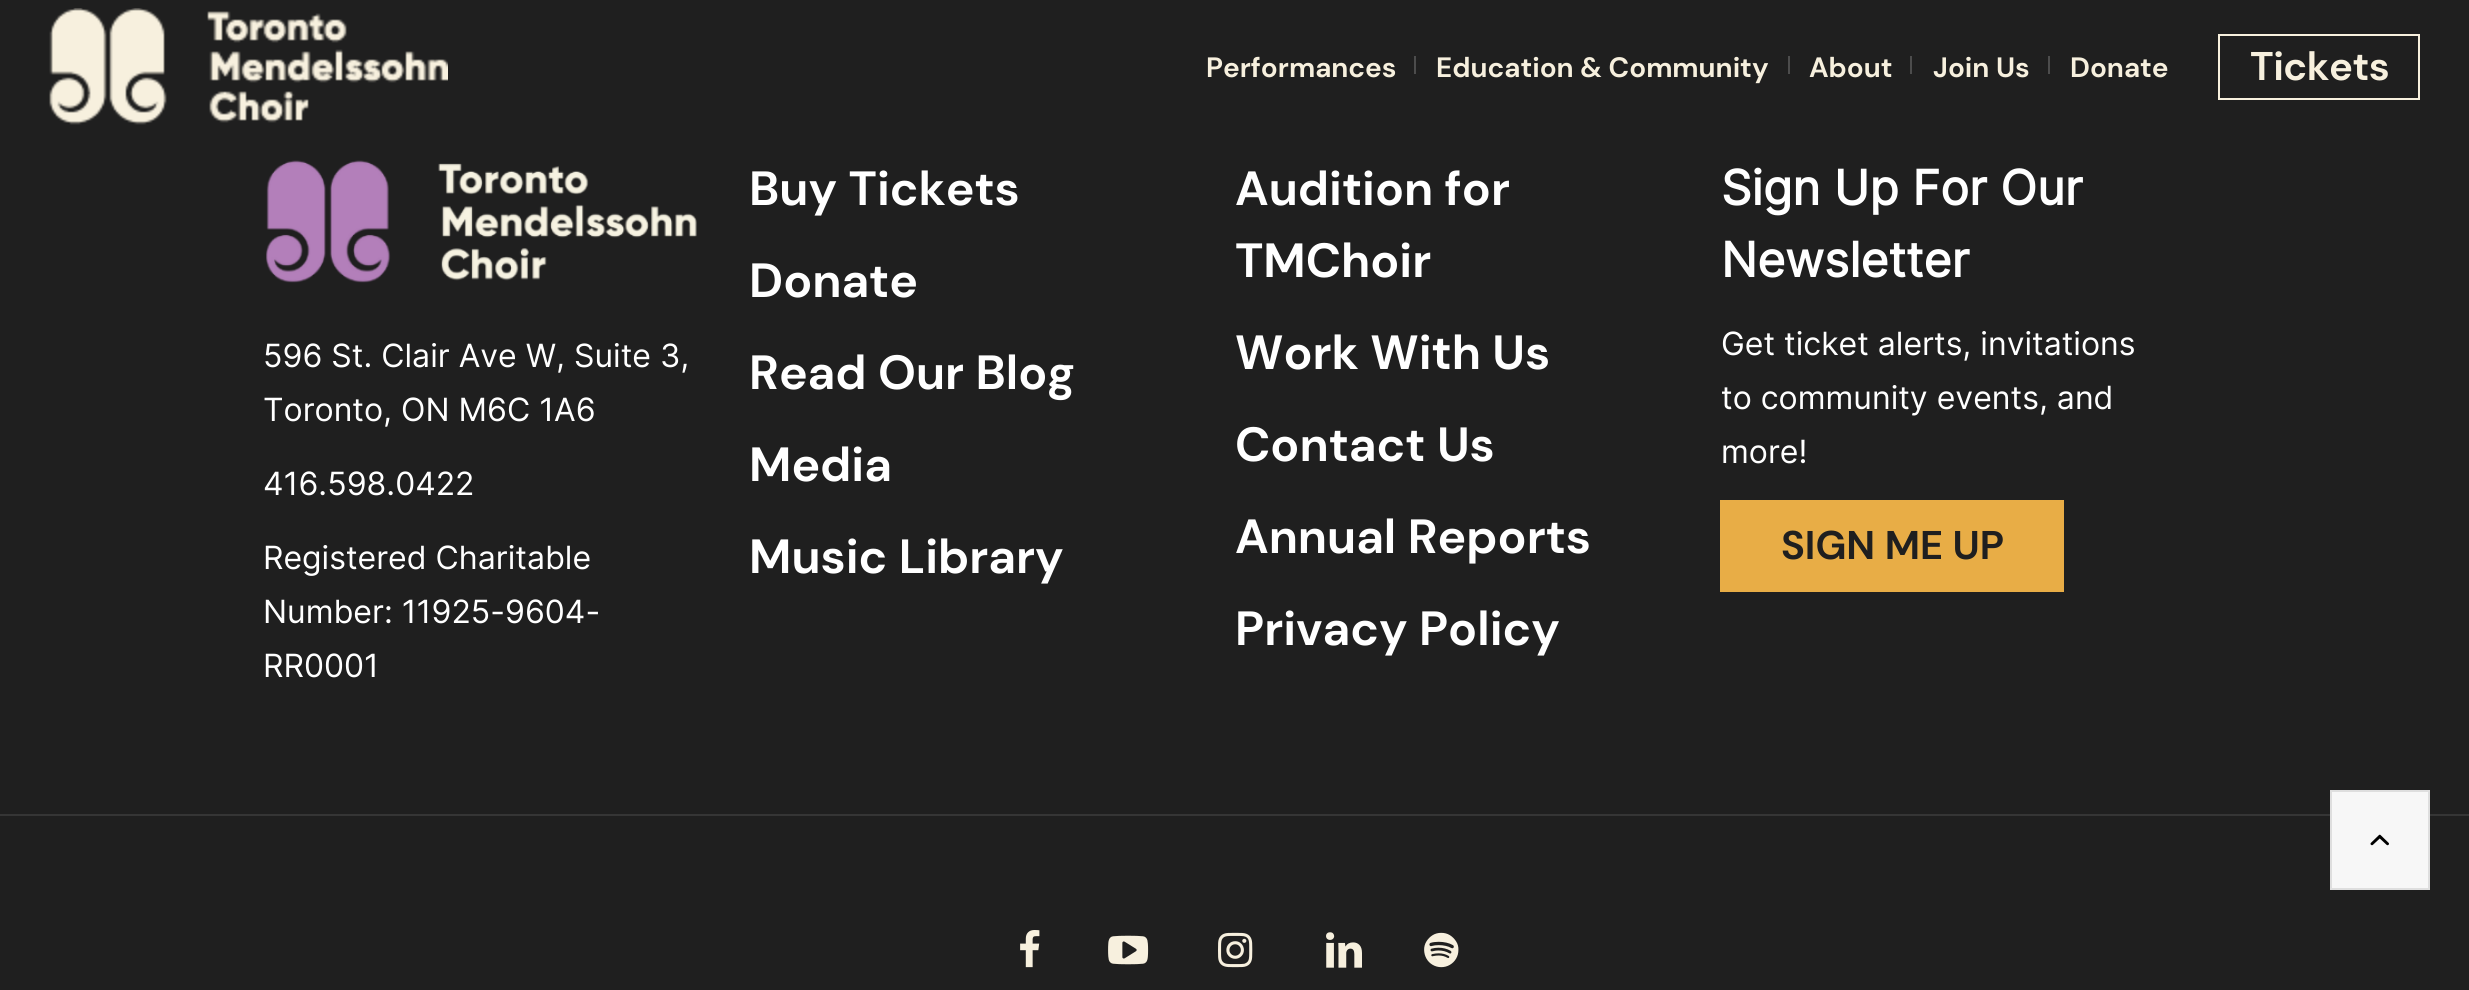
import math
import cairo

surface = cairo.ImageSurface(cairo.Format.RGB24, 2469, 990)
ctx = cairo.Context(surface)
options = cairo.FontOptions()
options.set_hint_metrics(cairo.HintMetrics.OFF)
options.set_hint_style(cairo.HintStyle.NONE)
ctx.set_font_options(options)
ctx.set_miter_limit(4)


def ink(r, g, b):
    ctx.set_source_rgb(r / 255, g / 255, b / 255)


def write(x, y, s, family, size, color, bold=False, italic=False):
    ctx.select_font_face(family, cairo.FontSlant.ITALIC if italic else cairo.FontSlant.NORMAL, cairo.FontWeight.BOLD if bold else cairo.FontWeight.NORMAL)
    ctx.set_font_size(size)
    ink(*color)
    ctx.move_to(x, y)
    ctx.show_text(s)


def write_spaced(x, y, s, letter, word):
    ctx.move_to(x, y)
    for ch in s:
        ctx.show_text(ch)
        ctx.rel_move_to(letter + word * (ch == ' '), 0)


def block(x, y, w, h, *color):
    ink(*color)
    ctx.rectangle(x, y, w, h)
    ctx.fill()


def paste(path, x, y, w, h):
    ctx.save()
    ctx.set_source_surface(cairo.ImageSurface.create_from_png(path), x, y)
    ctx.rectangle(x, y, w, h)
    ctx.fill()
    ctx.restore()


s1 = dict(family="DM Sans", size=28, color=(247, 240, 222), bold=True)
s2 = dict(family="Inter", size=32, color=(255, 255, 255))
s3 = dict(family="DM Sans", size=48, color=(255, 255, 255), bold=True)
s4 = dict(family="Inter", size=48, color=(255, 255, 255), bold=True)
s5 = dict(family="DM Sans", size=40, color=(31, 31, 31), bold=True)

ink(31, 31, 31)
ctx.paint()
paste("pic1.png", 49, 8, 399, 117)
write(1206, 77, "Performances", **s1)
block(1414, 56, 2, 18, 76, 76, 76)
write(1436, 77, "Education & Community", **s1)
block(1788, 56, 2, 18, 76, 76, 76)
write(1809, 77, "About", **s1)
block(1910, 56, 2, 18, 76, 76, 76)
write(1933, 77, "Join Us", **s1)
block(2048, 56, 2, 18, 76, 76, 76)
write(2070, 77, "Donate", **s1)
ctx.rectangle(2219, 35, 200, 64)
ctx.stroke()
ctx.set_font_size(40)
write_spaced(2250, 80, "Tickets", -0.5, 0)
paste("pic2.png", 266, 160, 431, 123)
write(263, 367, "596 St. Clair Ave W, Suite 3,", **s2)
write(263, 421, "Toronto, ON M6C 1A6", **s2)
write(263, 495, "416.598.0422", **s2)
write(263, 569, "Registered Charitable", **s2)
write(263, 623, "Number: 11925-9604-", **s2)
write(263, 677, "RR0001", **s2)
write(749, 205, "Buy Tickets", **s3)
write(749, 297, "Donate", **s3)
write(749, 389, "Read Our Blog", **s3)
write(749, 481, "Media", **s3)
write(749, 573, "Music Library", **s3)
write(1235, 205, "Audition for", **s3)
write(1235, 277, "TMChoir", **s3)
write(1235, 369, "Work With Us", **s3)
write(1235, 461, "Contact Us", **s3)
write(1235, 553, "Annual Reports", **s3)
write(1235, 645, "Privacy Policy", **s3)
write(1721, 205, "Sign Up For Our", **s4)
write(1721, 277, "Newsletter", **s4)
write(1721, 355, "Get ticket alerts, invitations", **s2)
write(1721, 409, "to community events, and", **s2)
write(1721, 463, "more!", **s2)
block(1720, 500, 344, 92, 232, 173, 70)
write(1781, 559, "SIGN ME UP", **s5)
block(0, 814, 2469, 2, 53, 53, 53)
ink(247, 247, 247)
ctx.rectangle(2331, 791, 98, 98)
ctx.fill_preserve()
ink(222, 222, 222)
ctx.stroke()
paste("pic3.png", 2370, 834, 19, 12)
paste("pic4.png", 1020, 930, 20, 38)
paste("pic5.png", 1108, 935, 41, 30)
paste("pic6.png", 1218, 932, 35, 36)
paste("pic7.png", 1326, 932, 36, 36)
paste("pic8.png", 1424, 932, 35, 36)
surface.write_to_png("screenshot.png")
